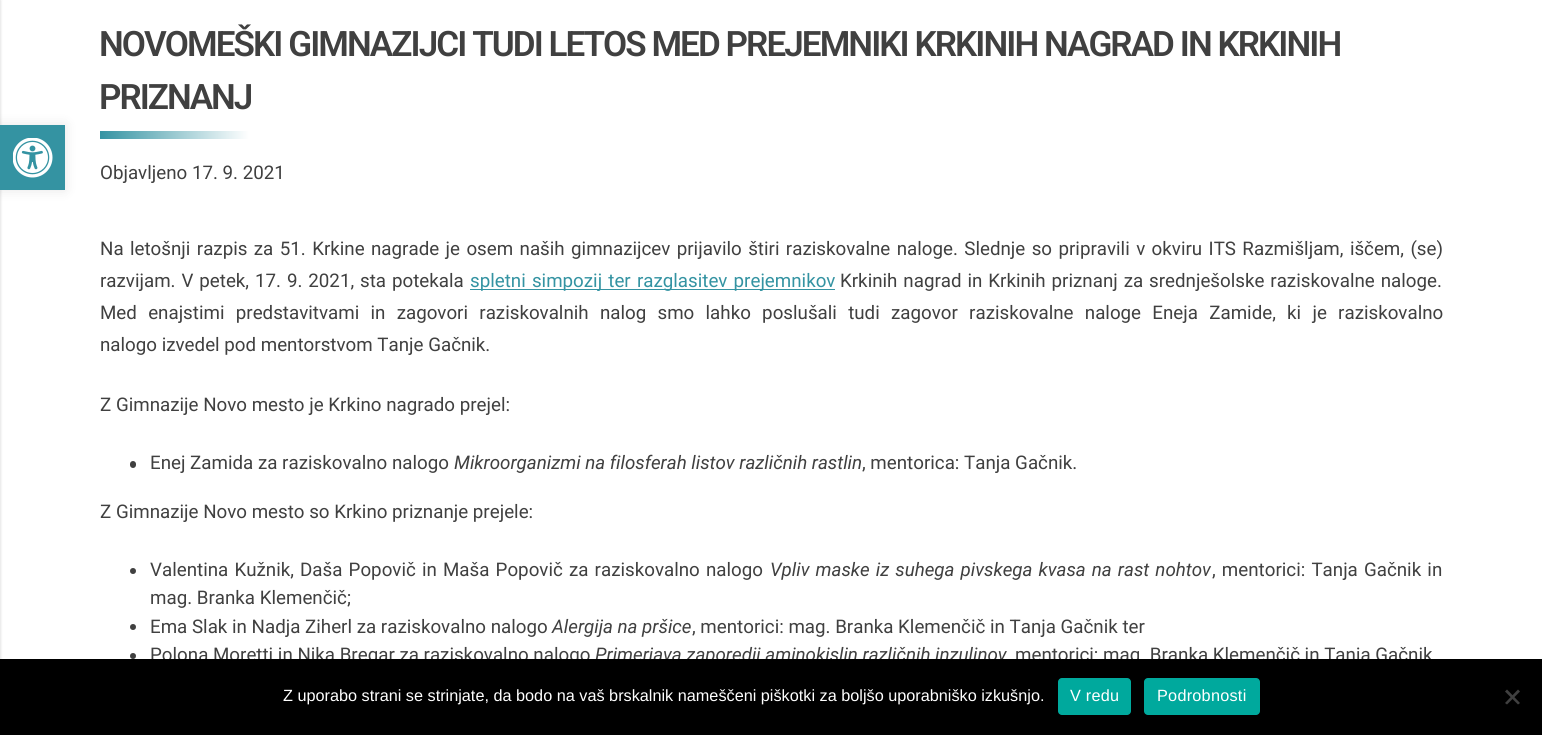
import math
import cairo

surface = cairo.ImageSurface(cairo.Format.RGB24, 1542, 735)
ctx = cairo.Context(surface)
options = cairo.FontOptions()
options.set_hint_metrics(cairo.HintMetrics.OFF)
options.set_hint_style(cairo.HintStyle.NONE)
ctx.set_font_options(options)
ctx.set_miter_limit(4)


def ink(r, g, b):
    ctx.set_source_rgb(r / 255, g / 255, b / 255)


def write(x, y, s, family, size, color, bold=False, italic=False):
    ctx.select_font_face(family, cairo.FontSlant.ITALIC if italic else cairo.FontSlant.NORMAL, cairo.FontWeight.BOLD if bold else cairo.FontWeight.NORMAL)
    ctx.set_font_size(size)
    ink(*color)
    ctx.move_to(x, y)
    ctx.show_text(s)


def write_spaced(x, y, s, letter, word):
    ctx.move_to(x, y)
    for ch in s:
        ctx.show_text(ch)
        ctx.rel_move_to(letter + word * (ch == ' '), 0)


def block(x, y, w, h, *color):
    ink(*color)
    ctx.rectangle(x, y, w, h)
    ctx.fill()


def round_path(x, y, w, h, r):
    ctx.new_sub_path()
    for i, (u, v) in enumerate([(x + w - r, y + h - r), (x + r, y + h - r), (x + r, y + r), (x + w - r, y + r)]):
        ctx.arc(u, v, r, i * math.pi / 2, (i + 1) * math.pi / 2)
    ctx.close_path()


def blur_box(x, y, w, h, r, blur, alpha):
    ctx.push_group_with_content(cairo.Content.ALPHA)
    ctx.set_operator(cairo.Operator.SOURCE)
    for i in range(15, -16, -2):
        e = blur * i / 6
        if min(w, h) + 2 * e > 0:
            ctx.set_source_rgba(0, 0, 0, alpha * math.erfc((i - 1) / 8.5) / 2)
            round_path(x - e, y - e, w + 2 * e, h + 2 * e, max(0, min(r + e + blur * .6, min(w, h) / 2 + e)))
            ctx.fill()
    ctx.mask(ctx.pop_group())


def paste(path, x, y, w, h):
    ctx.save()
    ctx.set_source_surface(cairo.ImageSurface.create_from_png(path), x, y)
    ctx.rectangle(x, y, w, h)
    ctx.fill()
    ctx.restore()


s1 = dict(family="Roboto", size=18.75, color=(64, 64, 64))
s2 = dict(family="Roboto", size=18.75, color=(64, 64, 64), italic=True)
s3 = dict(family="Liberation Sans", size=16.25, color=(255, 255, 255))

ink(255, 255, 255)
ctx.paint()
ink(0, 0, 0)
blur_box(-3, 0, 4, 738, 0, 1, 0.1)
ctx.select_font_face("Roboto SemiBold")
ctx.set_font_size(35)
ink(64, 64, 64)
write_spaced(99, 56, "NOVOMEŠKI GIMNAZIJCI TUDI LETOS MED PREJEMNIKI KRKINIH NAGRAD IN KRKINIH", -1.92, 0)
write_spaced(99, 109, "PRIZNANJ", -2, 0)
gradient = cairo.LinearGradient(99, 135, 249, 135)
gradient.add_color_stop_rgba(0, 0.204, 0.576, 0.635, 1)
gradient.add_color_stop_rgba(1, 1, 1, 1, 1)
ctx.set_source(gradient)
ctx.rectangle(100, 131, 149, 8)
ctx.fill()
write(100, 179, "Objavljeno 17. 9. 2021", **s1)
write_spaced(100, 255, "Na letošnji razpis za 51. Krkine nagrade je osem naših gimnazijcev prijavilo štiri raziskovalne naloge. Slednje so pripravili v okviru ITS Razmišljam, iščem, (se)", 0, 1.75)
write_spaced(100, 287, "razvijam. V petek, 17. 9. 2021, sta potekala", 0, 1.25)
block(470, 289, 365, 1, 52, 147, 162)
write_spaced(470, 287, "spletni simpozij ter razglasitev prejemnikov", 0, 1.5)
ink(64, 64, 64)
write_spaced(840, 287, "Krkinih nagrad in Krkinih priznanj za srednješolske raziskovalne naloge.", 0, 1.25)
write_spaced(100, 319, "Med enajstimi predstavitvami in zagovori raziskovalnih nalog smo lahko poslušali tudi zagovor raziskovalne naloge Eneja Zamide, ki je raziskovalno", 0, 6.6)
write(100, 351, "nalogo izvedel pod mentorstvom Tanje Gačnik.", **s1)
write(100, 411, "Z Gimnazije Novo mesto je Krkino nagrado prejel:", **s1)
round_path(130, 461, 6, 7, 3)
ctx.fill()
write(150, 469, "Enej Zamida za raziskovalno nalogo", **s1)
write(454, 469, "Mikroorganizmi na filosferah listov različnih rastlin", **s2)
write(862, 469, ", mentorica: Tanja Gačnik.", **s1)
write(100, 518, "Z Gimnazije Novo mesto so Krkino priznanje prejele:", **s1)
ctx.new_path()
ctx.arc(133, 571, 3, 0, 2 * math.pi)
ctx.fill()
write_spaced(150, 576, "Valentina Kužnik, Daša Popovič in Maša Popovič za raziskovalno nalogo", 0, 1.5)
ctx.select_font_face("Roboto", cairo.FontSlant.ITALIC)
write_spaced(770, 576, "Vpliv maske iz suhega pivskega kvasa na rast nohtov", 0, 1.5)
ctx.select_font_face("Roboto")
write_spaced(1212, 576, ", mentorici: Tanja Gačnik in", 0, 1.5)
write(150, 604, "mag. Branka Klemenčič;", **s1)
ctx.new_path()
ctx.arc(133, 627, 3, 0, 2 * math.pi)
ctx.fill()
write(150, 633, "Ema Slak in Nadja Ziherl za raziskovalno nalogo", **s1)
write(552, 633, "Alergija na pršice", **s2)
write(692, 633, ", mentorici: mag. Branka Klemenčič in Tanja Gačnik ter", **s1)
ctx.new_path()
ctx.arc(133, 656, 3, 0, 2 * math.pi)
ctx.fill()
write(150, 661, "Polona Moretti in Nika Bregar za raziskovalno nalogo", **s1)
write(595, 661, "Primerjava zaporedij aminokislin različnih inzulinov", **s2)
write(1015, 661, "mentorici: mag. Branka Klemenčič in Tanja Gačnik", **s1)
ink(0, 0, 0)
blur_box(0, 125, 65, 65, 0, 6, 0.1)
block(0, 125, 65, 65, 52, 147, 162)
paste("pic1.png", 13, 138, 40, 40)
block(0, 659, 1542, 76, 0, 0, 0)
write(283, 701, "Z uporabo strani se strinjate, da bodo na vaš brskalnik nameščeni piškotki za boljšo uporabniško izkušnjo.", **s3)
ink(0, 169, 157)
round_path(1058, 678, 73, 37, 4)
ctx.fill()
ink(255, 255, 255)
write_spaced(1070, 701, "V redu", 0.25, 0)
ink(0, 169, 157)
round_path(1144, 678, 116, 37, 4)
ctx.fill()
ink(255, 255, 255)
write_spaced(1157, 701, "Podrobnosti", 0.25, 0)
ink(64, 64, 64)
ctx.new_path()
ctx.move_to(1518, 689.5)
ctx.line_to(1520, 691.5)
ctx.line_to(1507, 704.5)
ctx.line_to(1505, 703)
ctx.close_path()
ctx.fill()
ctx.new_path()
ctx.move_to(1505, 691.5)
ctx.line_to(1507, 689.5)
ctx.line_to(1520, 703)
ctx.line_to(1518, 704.5)
ctx.close_path()
ctx.fill()
surface.write_to_png("screenshot.png")
